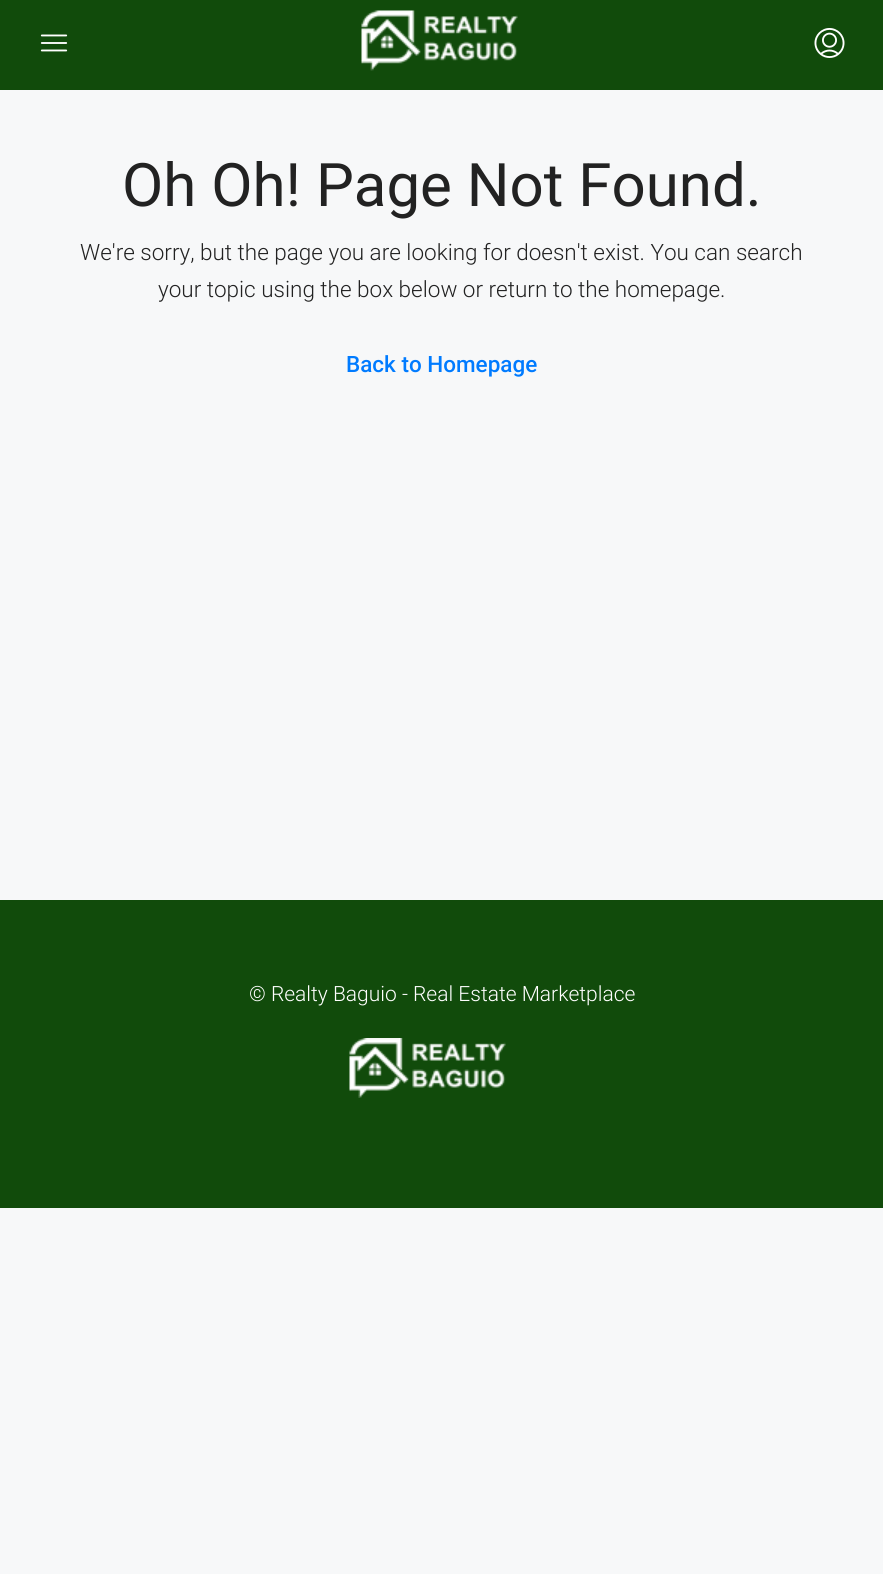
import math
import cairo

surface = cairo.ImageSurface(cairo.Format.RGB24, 883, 1574)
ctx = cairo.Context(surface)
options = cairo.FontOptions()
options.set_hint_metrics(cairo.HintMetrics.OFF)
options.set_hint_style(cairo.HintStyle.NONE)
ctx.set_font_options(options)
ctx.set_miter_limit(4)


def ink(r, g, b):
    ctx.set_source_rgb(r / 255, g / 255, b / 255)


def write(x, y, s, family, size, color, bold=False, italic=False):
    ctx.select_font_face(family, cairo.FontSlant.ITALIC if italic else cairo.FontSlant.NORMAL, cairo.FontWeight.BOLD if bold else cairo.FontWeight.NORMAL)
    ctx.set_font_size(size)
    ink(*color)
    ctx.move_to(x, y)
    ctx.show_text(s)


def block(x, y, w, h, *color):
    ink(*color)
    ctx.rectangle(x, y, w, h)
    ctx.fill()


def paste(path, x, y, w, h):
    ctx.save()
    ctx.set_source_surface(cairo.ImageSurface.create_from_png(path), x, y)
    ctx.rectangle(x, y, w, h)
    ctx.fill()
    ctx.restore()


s1 = dict(family="Roboto", size=60, color=(34, 34, 34))
s2 = dict(family="Roboto Light", size=22.5, color=(34, 34, 34))
s3 = dict(family="Roboto Medium", size=22.5, color=(0, 123, 255))
s4 = dict(family="Roboto Light", size=21, color=(255, 255, 255))

ink(247, 248, 249)
ctx.paint()
block(0, 0, 883, 90, 17, 75, 11)
paste("pic1.png", 40, 34, 28, 18)
paste("pic2.png", 361, 10, 157, 61)
paste("pic3.png", 814, 28, 31, 30)
write(122, 206, "Oh Oh! Page Not Found.", **s1)
write(80, 260, "We're sorry, but the page you are looking for doesn't exist. You can search", **s2)
write(158, 297, "your topic using the box below or return to the homepage.", **s2)
write(346, 372, "Back to Homepage", **s3)
block(0, 900, 883, 308, 17, 75, 11)
write(249, 1001, "© Realty Baguio - Real Estate Marketplace", **s4)
paste("pic4.png", 349, 1038, 157, 60)
surface.write_to_png("screenshot.png")
